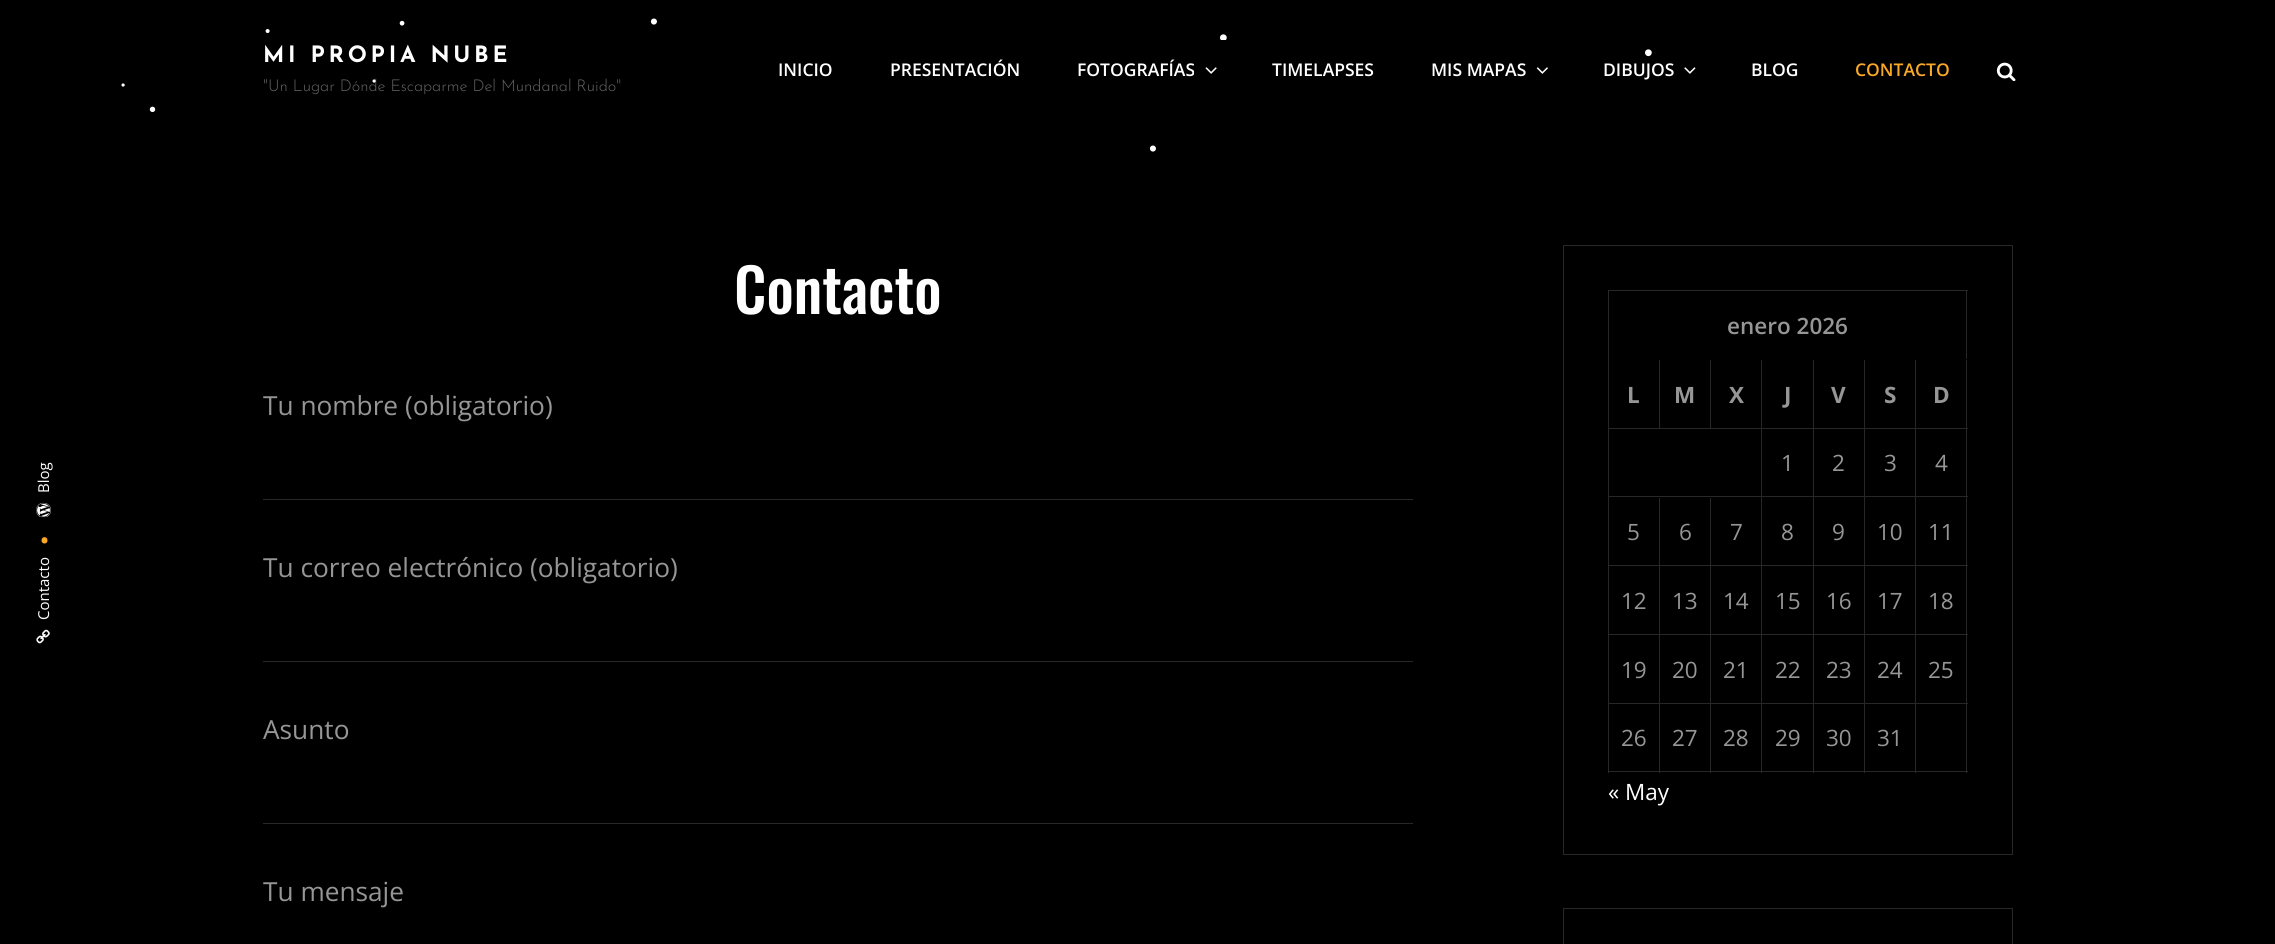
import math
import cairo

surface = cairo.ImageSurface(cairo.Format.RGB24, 2275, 944)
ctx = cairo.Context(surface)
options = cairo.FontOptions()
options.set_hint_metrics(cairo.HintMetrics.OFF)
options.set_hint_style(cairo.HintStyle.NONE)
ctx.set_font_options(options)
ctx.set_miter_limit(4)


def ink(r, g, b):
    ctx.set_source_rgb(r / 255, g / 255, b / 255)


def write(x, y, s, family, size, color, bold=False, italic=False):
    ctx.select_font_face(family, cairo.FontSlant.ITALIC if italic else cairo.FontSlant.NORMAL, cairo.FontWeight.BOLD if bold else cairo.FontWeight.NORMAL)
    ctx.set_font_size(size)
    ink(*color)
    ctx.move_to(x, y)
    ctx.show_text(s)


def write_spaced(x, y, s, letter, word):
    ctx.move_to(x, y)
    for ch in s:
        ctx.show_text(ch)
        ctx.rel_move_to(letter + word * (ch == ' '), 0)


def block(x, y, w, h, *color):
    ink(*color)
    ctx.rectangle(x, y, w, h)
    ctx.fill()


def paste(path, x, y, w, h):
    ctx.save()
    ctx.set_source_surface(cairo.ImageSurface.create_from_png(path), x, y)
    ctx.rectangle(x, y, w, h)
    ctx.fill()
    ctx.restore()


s1 = dict(family="Liberation Sans", size=17.5, color=(255, 255, 255))
s2 = dict(family="Liberation Sans", size=22.5, color=(255, 255, 255))
s3 = dict(family="Liberation Sans", size=15, color=(255, 255, 255))
s4 = dict(family="Liberation Sans", size=25, color=(255, 255, 255))
s5 = dict(family="Josefin Sans Light", size=16.25, color=(102, 102, 102))
s6 = dict(family="Open Sans SemiBold", size=17.5, color=(255, 255, 255))
s7 = dict(family="Open Sans SemiBold", size=17.5, color=(249, 169, 38))
s8 = dict(family="Open Sans", size=15, color=(255, 255, 255))
s9 = dict(family="Oswald Medium", size=60, color=(255, 255, 255))
s10 = dict(family="Open Sans", size=26.25, color=(150, 150, 150))
s11 = dict(family="Open Sans SemiBold", size=22.5, color=(150, 150, 150))
s12 = dict(family="Open Sans", size=22.5, color=(150, 150, 150), bold=True)
s13 = dict(family="Open Sans", size=22.5, color=(150, 150, 150))
s14 = dict(family="Open Sans", size=22.5, color=(255, 255, 255))
s15 = dict(family="Liberation Sans", size=12, color=(255, 255, 255))
s16 = dict(family="Liberation Sans", size=20, color=(255, 255, 255))

ink(0, 0, 0)
ctx.paint()
write(399, 29, "•", **s1)
write(650, 29, "•", **s2)
write(265, 36, "•", **s3)
ctx.save()
ctx.rectangle(1219, 30, 10, 10)
ctx.clip()
write(1219, 46, "•", **s4)
ctx.restore()
ctx.select_font_face("Josefin Sans", cairo.FontSlant.NORMAL, cairo.FontWeight.BOLD)
ctx.set_font_size(22.5)
write_spaced(263, 62, "MI PROPIA NUBE", 3.75, 0)
write(263, 91, "\"Un Lugar Dónde Escaparme Del Mundanal Ruido\"", **s5)
write(778, 76, "INICIO", **s6)
write(890, 76, "PRESENTACIÓN", **s6)
write(1077, 76, "FOTOGRAFÍAS", **s6)
paste("pic1.png", 1205, 67, 12, 7)
write(1272, 76, "TIMELAPSES", **s6)
write(1431, 76, "MIS MAPAS", **s6)
paste("pic2.png", 1536, 67, 12, 7)
write(1603, 76, "DIBUJOS", **s6)
paste("pic3.png", 1684, 67, 12, 7)
write(1751, 76, "BLOG", **s6)
write(1855, 76, "CONTACTO", **s7)
paste("pic4.png", 1996, 62, 20, 19)
ctx.save()
ctx.translate(49, 493)
ctx.rotate(-90 * math.pi / 180)
write(0, 0, "Blog", **s8)
ctx.restore()
paste("pic5.png", 36, 502, 15, 16)
ink(249, 169, 38)
ctx.new_path()
ctx.move_to(41.5, 540.5)
ctx.curve_to(41.5, 536, 47.5, 536, 47.5, 540.5)
ctx.curve_to(47.5, 544.5, 41.5, 544.5, 41.5, 540.5)
ctx.close_path()
ctx.fill()
ctx.save()
ctx.translate(49, 620)
ctx.rotate(-90 * math.pi / 180)
write(0, 0, "Contacto", **s8)
ctx.restore()
paste("pic6.png", 36, 629, 14, 15)
write(734, 314, "Contacto", **s9)
write(263, 415, "Tu nombre (obligatorio)", **s10)
block(263, 499, 1150, 1, 40, 40, 40)
write(263, 577, "Tu correo electrónico (obligatorio)", **s10)
block(263, 661, 1150, 1, 40, 40, 40)
write(263, 739, "Asunto", **s10)
block(263, 823, 1150, 1, 40, 40, 40)
write(263, 901, "Tu mensaje", **s10)
ctx.rectangle(1563.5, 245.5, 449, 609)
ink(40, 40, 40)
ctx.set_line_width(1)
ctx.stroke()
block(1608, 290, 360, 1, 40, 40, 40)
block(1608, 290, 1, 483, 40, 40, 40)
block(1966, 290, 1, 69, 40, 40, 40)
write(1727, 334, "enero 2026", **s11)
block(1659, 360, 1, 69, 40, 40, 40)
block(1609, 428, 51, 1, 40, 40, 40)
write(1627, 403, "L", **s12)
block(1710, 360, 1, 69, 40, 40, 40)
block(1660, 428, 51, 1, 40, 40, 40)
write(1674, 403, "M", **s12)
block(1761, 360, 1, 413, 40, 40, 40)
block(1711, 428, 52, 1, 40, 40, 40)
write(1729, 403, "X", **s12)
block(1813, 360, 1, 413, 40, 40, 40)
block(1763, 428, 51, 1, 40, 40, 40)
write(1784, 403, "J", **s12)
block(1864, 360, 1, 413, 40, 40, 40)
block(1814, 428, 51, 1, 40, 40, 40)
write(1831, 403, "V", **s12)
block(1915, 360, 1, 413, 40, 40, 40)
block(1865, 428, 51, 1, 40, 40, 40)
write(1884, 403, "S", **s12)
block(1966, 360, 1, 413, 40, 40, 40)
block(1916, 428, 52, 1, 40, 40, 40)
write(1933, 403, "D", **s12)
write(1781, 471, "1", **s13)
write(1832, 471, "2", **s13)
write(1884, 471, "3", **s13)
write(1935, 471, "4", **s13)
block(1609, 496, 359, 1, 40, 40, 40)
block(1659, 498, 1, 275, 40, 40, 40)
block(1609, 565, 51, 1, 40, 40, 40)
write(1627, 540, "5", **s13)
block(1710, 498, 1, 275, 40, 40, 40)
block(1660, 565, 308, 1, 40, 40, 40)
write(1679, 540, "6", **s13)
write(1730, 540, "7", **s13)
write(1781, 540, "8", **s13)
write(1832, 540, "9", **s13)
write(1877, 540, "10", **s13)
write(1928, 540, "11", **s13)
block(1609, 634, 359, 1, 40, 40, 40)
write(1621, 609, "12", **s13)
write(1672, 609, "13", **s13)
write(1723, 609, "14", **s13)
write(1775, 609, "15", **s13)
write(1826, 609, "16", **s13)
write(1877, 609, "17", **s13)
write(1928, 609, "18", **s13)
block(1609, 703, 359, 1, 40, 40, 40)
write(1621, 678, "19", **s13)
write(1672, 678, "20", **s13)
write(1723, 678, "21", **s13)
write(1775, 678, "22", **s13)
write(1826, 678, "23", **s13)
write(1877, 678, "24", **s13)
write(1928, 678, "25", **s13)
block(1609, 771, 359, 1, 40, 40, 40)
write(1621, 746, "26", **s13)
write(1672, 746, "27", **s13)
write(1723, 746, "28", **s13)
write(1775, 746, "29", **s13)
write(1826, 746, "30", **s13)
write(1877, 746, "31", **s13)
write(1608, 800, "« May", **s14)
ctx.rectangle(1563.5, 908.5, 449, 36)
ink(40, 40, 40)
ctx.stroke()
write(1644, 61, "•", **s4)
write(372, 85, "•", **s15)
write(121, 89, "•", **s15)
write(149, 116, "•", **s16)
write(1149, 156, "•", **s2)
surface.write_to_png("screenshot.png")
